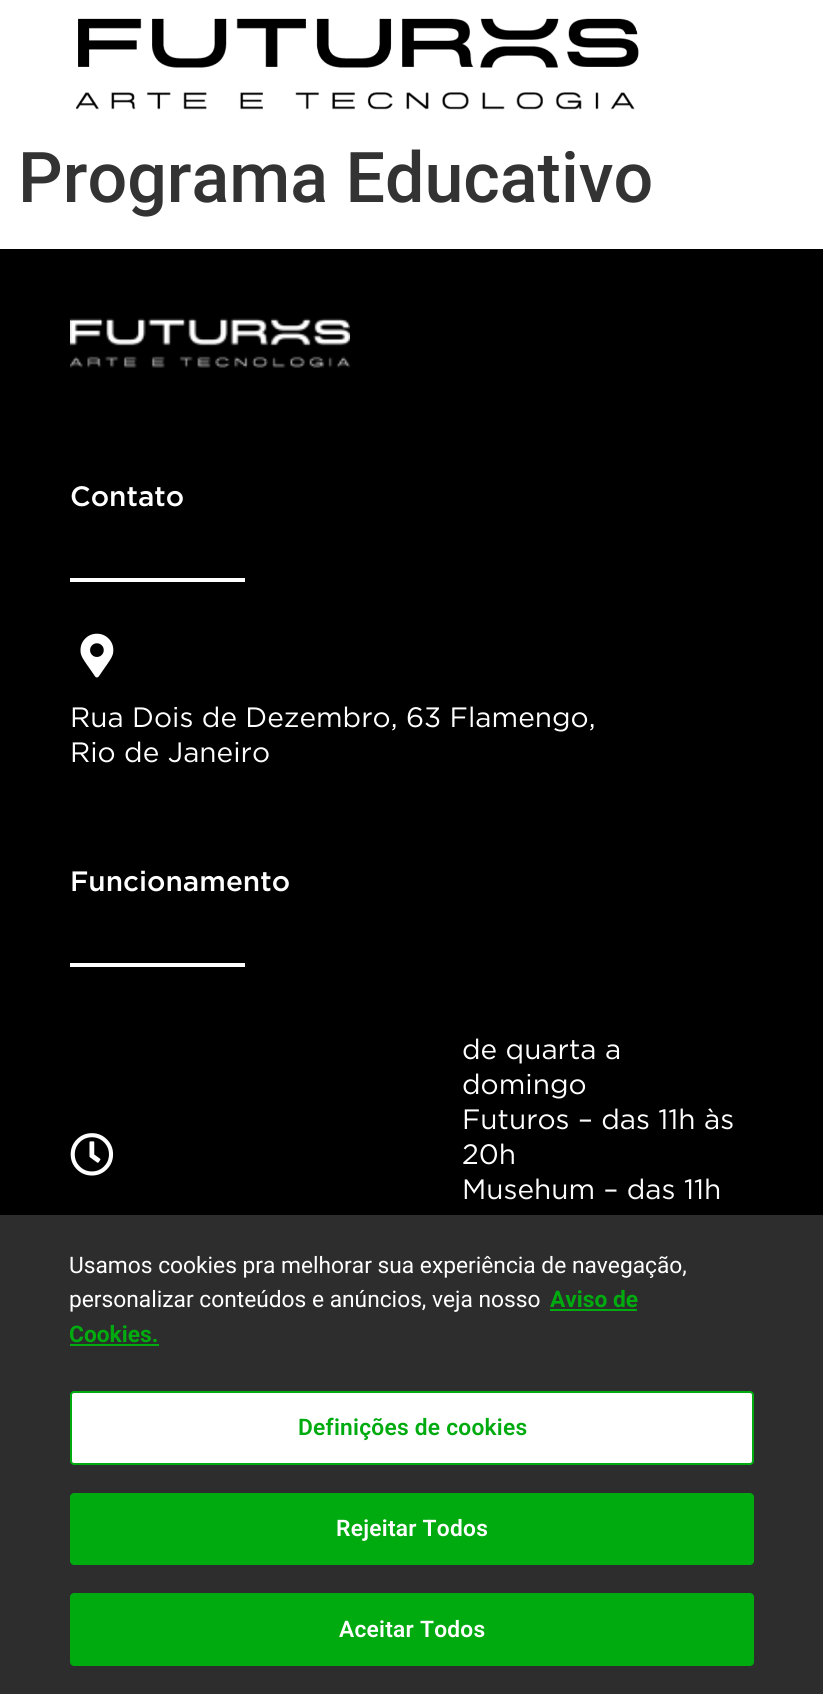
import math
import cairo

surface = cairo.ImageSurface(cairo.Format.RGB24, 823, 1694)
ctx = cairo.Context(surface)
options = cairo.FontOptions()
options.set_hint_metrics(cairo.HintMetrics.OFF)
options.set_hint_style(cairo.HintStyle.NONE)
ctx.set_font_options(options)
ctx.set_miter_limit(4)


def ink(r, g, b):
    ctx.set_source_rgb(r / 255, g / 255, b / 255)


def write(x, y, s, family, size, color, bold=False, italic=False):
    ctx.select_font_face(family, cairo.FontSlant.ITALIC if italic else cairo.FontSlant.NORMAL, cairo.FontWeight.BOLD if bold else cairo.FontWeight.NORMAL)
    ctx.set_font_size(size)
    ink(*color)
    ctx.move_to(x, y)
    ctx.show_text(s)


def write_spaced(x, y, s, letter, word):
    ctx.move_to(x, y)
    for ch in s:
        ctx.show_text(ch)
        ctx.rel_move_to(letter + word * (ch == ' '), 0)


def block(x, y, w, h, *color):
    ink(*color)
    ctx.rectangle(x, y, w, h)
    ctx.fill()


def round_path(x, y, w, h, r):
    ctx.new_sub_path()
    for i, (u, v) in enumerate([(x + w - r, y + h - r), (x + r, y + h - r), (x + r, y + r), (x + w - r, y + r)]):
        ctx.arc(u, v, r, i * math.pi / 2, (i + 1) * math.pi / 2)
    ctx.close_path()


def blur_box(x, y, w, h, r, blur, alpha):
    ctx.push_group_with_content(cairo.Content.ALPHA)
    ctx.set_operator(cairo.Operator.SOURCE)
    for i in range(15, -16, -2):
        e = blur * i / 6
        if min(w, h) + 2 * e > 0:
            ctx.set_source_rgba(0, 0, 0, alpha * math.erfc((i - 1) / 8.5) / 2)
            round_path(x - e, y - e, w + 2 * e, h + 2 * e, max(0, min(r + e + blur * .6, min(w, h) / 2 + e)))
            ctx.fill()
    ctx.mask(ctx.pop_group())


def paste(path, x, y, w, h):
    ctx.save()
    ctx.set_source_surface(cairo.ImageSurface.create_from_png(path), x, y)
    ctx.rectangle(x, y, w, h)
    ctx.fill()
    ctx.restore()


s1 = dict(family="Roboto Medium", size=70, color=(51, 51, 51))
s2 = dict(family="Gotham Medium", size=28, color=(255, 255, 255))
s3 = dict(family="Gotham", size=28, color=(255, 255, 255))
s4 = dict(family="Roboto", size=22.75, color=(255, 255, 255))
s5 = dict(family="Roboto", size=22.75, color=(0, 171, 15), bold=True)

ink(255, 255, 255)
ctx.paint()
paste("pic1.png", 75, 18, 564, 92)
write(18, 202, "Programa Educativo", **s1)
block(0, 249, 823, 966, 0, 0, 0)
paste("pic2.png", 70, 318, 280, 50)
write(70, 506, "Contato", **s2)
block(70, 578, 175, 4, 255, 255, 255)
paste("pic3.png", 80, 633, 34, 45)
write(70, 727, "Rua Dois de Dezembro, 63 Flamengo,", **s3)
write(70, 762, "Rio de Janeiro", **s3)
write(70, 891, "Funcionamento", **s2)
block(70, 963, 175, 4, 255, 255, 255)
paste("pic4.png", 70, 1133, 44, 43)
write(462, 1059, "de quarta a", **s3)
write(462, 1094, "domingo", **s3)
write(462, 1129, "Futuros – das 11h às", **s3)
write(462, 1164, "20h", **s3)
write(462, 1199, "Musehum – das 11h", **s3)
ink(0, 0, 0)
blur_box(0, 1215, 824, 479, 0, 16, 0.2)
block(0, 1215, 823, 479, 45, 45, 45)
write(69, 1273, "Usamos cookies pra melhorar sua experiência de navegação,", **s4)
write(69, 1307, "personalizar conteúdos e anúncios, veja nosso", **s4)
write(550, 1307, "Aviso de", **s5)
block(550, 1309, 87, 2, 0, 171, 15)
write(69, 1342, "Cookies.", **s5)
block(70, 1344, 89, 2, 0, 171, 15)
ink(255, 255, 255)
round_path(71, 1392, 682, 72, 3)
ctx.fill_preserve()
ink(0, 171, 15)
ctx.stroke()
ctx.select_font_face("Roboto SemiBold")
write_spaced(298, 1435, "Definições de cookies", 0.25, 0)
round_path(71, 1494, 682, 70, 3)
ctx.fill_preserve()
ctx.stroke()
ink(255, 255, 255)
write_spaced(336, 1536, "Rejeitar Todos", 0.25, 0)
ink(0, 171, 15)
round_path(71, 1594, 682, 71, 3)
ctx.fill_preserve()
ctx.stroke()
ink(255, 255, 255)
write_spaced(339, 1637, "Aceitar Todos", 0.25, 0)
surface.write_to_png("screenshot.png")
